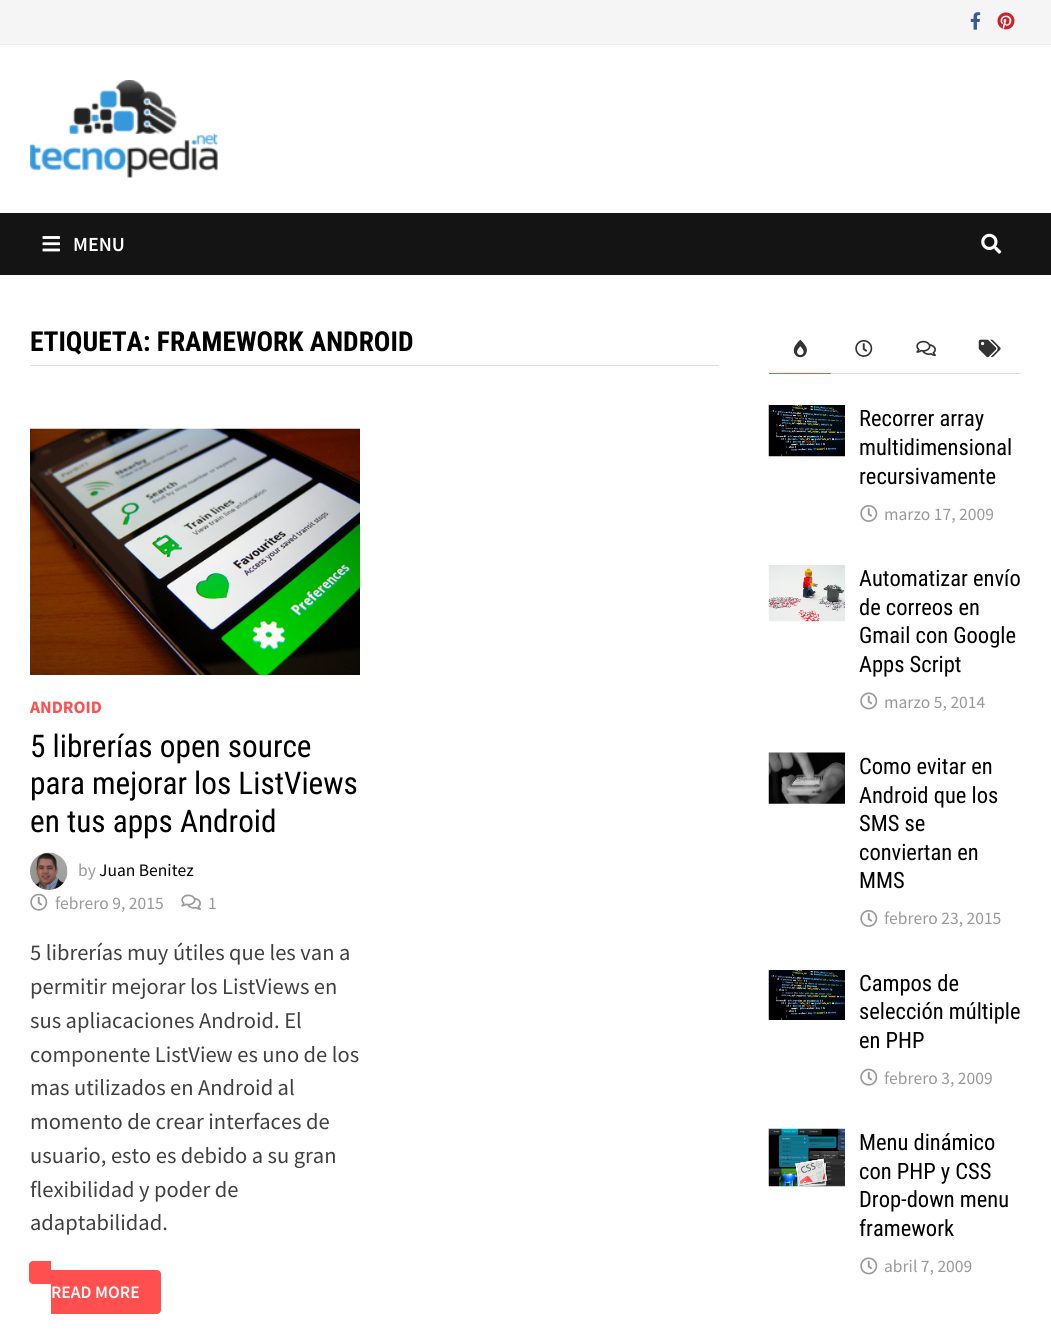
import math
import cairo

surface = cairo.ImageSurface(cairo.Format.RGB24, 1051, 1341)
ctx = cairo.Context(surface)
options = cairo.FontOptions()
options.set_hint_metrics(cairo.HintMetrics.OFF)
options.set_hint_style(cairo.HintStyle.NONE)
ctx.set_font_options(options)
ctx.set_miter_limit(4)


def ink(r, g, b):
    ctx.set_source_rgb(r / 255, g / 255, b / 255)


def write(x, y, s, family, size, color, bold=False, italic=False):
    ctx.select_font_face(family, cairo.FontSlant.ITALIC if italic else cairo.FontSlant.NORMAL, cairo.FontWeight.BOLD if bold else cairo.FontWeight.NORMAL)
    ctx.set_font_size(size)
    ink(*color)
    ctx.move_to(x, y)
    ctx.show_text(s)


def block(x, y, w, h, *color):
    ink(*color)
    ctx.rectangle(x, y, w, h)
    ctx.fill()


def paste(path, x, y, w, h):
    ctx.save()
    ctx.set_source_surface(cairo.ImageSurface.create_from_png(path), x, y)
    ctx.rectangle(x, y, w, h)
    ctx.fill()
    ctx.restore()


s1 = dict(family="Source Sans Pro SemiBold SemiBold", size=20, color=(255, 255, 255))
s2 = dict(family="Roboto Condensed", size=27.5, color=(0, 0, 0), bold=True)
s3 = dict(family="Source Sans Pro", size=17.5, color=(255, 79, 79), bold=True)
s4 = dict(family="Roboto Condensed", size=31.25, color=(0, 0, 0))
s5 = dict(family="Source Sans Pro", size=17.5, color=(153, 153, 153))
s6 = dict(family="Source Sans Pro", size=17.5, color=(0, 0, 0))
s7 = dict(family="Source Sans Pro", size=22.5, color=(64, 64, 64))
s8 = dict(family="Source Sans Pro SemiBold SemiBold", size=17.5, color=(255, 255, 255))
s9 = dict(family="Roboto Condensed", size=22.5, color=(0, 0, 0))

ink(255, 255, 255)
ctx.paint()
block(0, 0, 1051, 44, 245, 245, 245)
block(0, 44, 1051, 1, 238, 238, 238)
paste("pic1.png", 970, 12, 11, 18)
paste("pic2.png", 997, 12, 18, 18)
paste("pic3.png", 30, 80, 188, 98)
block(0, 213, 1051, 62, 20, 20, 20)
paste("pic4.png", 42, 236, 18, 16)
write(73, 251, "MENU", **s1)
paste("pic5.png", 981, 233, 21, 21)
block(30, 365, 689, 1, 221, 221, 221)
write(30, 351, "ETIQUETA: FRAMEWORK ANDROID", **s2)
paste("pic6.png", 30, 428, 330, 247)
write(30, 713, "ANDROID", **s3)
write(30, 757, "5 librerías open source", **s4)
write(30, 794, "para mejorar los ListViews", **s4)
write(30, 832, "en tus apps Android", **s4)
paste("pic7.png", 30, 852, 38, 38)
write(78, 876, "by", **s5)
write(99, 876, "Juan Benitez", **s6)
paste("pic8.png", 30, 893, 18, 18)
write(55, 909, "febrero 9, 2015", **s5)
paste("pic9.png", 181, 894, 20, 16)
write(208, 909, "1", **s5)
write(30, 960, "5 librerías muy útiles que les van a", **s7)
write(30, 994, "permitir mejorar los ListViews en", **s7)
write(30, 1028, "sus apliacaciones Android. El", **s7)
write(30, 1062, "componente ListView es uno de los", **s7)
write(30, 1095, "mas utilizados en Android al", **s7)
write(30, 1129, "momento de crear interfaces de", **s7)
write(30, 1163, "usuario, esto es debido a su gran", **s7)
write(30, 1197, "flexibilidad y poder de", **s7)
write(30, 1230, "adaptabilidad.", **s7)
ink(255, 79, 79)
ctx.new_path()
ctx.move_to(51, 1270)
ctx.line_to(157, 1270)
ctx.curve_to(159, 1270, 161, 1272, 161, 1274)
ctx.line_to(161, 1310)
ctx.curve_to(161, 1312, 159, 1314, 157, 1314)
ctx.line_to(51, 1314)
ctx.close_path()
ctx.fill()
write(51, 1298, "READ MORE", **s8)
ink(255, 79, 79)
ctx.new_path()
ctx.move_to(33, 1261)
ctx.line_to(51, 1261)
ctx.line_to(51, 1284)
ctx.line_to(33, 1284)
ctx.curve_to(31, 1284, 29, 1282, 29, 1280)
ctx.line_to(29, 1265)
ctx.curve_to(29, 1263, 31, 1261, 33, 1261)
ctx.close_path()
ctx.fill()
block(769, 373, 62, 1, 255, 79, 79)
paste("pic10.png", 793, 339, 14, 19)
paste("pic11.png", 978, 339, 23, 19)
block(831, 373, 190, 1, 221, 221, 221)
paste("pic12.png", 855, 340, 18, 17)
paste("pic13.png", 916, 340, 20, 17)
paste("pic14.png", 768, 405, 77, 52)
write(859, 426, "Recorrer array", **s9)
write(859, 455, "multidimensional", **s9)
write(859, 484, "recursivamente", **s9)
paste("pic15.png", 860, 505, 18, 17)
write(884, 520, "marzo 17, 2009", **s5)
paste("pic16.png", 768, 565, 77, 57)
write(859, 586, "Automatizar envío", **s9)
write(859, 615, "de correos en", **s9)
write(859, 643, "Gmail con Google", **s9)
write(859, 672, "Apps Script", **s9)
paste("pic17.png", 860, 692, 18, 18)
write(884, 708, "marzo 5, 2014", **s5)
paste("pic18.png", 768, 752, 77, 52)
write(859, 774, "Como evitar en", **s9)
write(859, 803, "Android que los", **s9)
write(859, 831, "SMS se", **s9)
write(859, 860, "conviertan en", **s9)
write(859, 888, "MMS", **s9)
paste("pic15.png", 860, 910, 18, 17)
write(884, 924, "febrero 23, 2015", **s5)
paste("pic19.png", 768, 970, 77, 50)
write(859, 991, "Campos de", **s9)
write(859, 1019, "selección múltiple", **s9)
write(859, 1048, "en PHP", **s9)
paste("pic8.png", 860, 1068, 18, 18)
write(884, 1084, "febrero 3, 2009", **s5)
paste("pic20.png", 768, 1128, 77, 59)
write(859, 1150, "Menu dinámico", **s9)
write(859, 1179, "con PHP y CSS", **s9)
write(859, 1207, "Drop-down menu", **s9)
write(859, 1236, "framework", **s9)
paste("pic17.png", 860, 1257, 18, 18)
write(884, 1272, "abril 7, 2009", **s5)
surface.write_to_png("screenshot.png")
